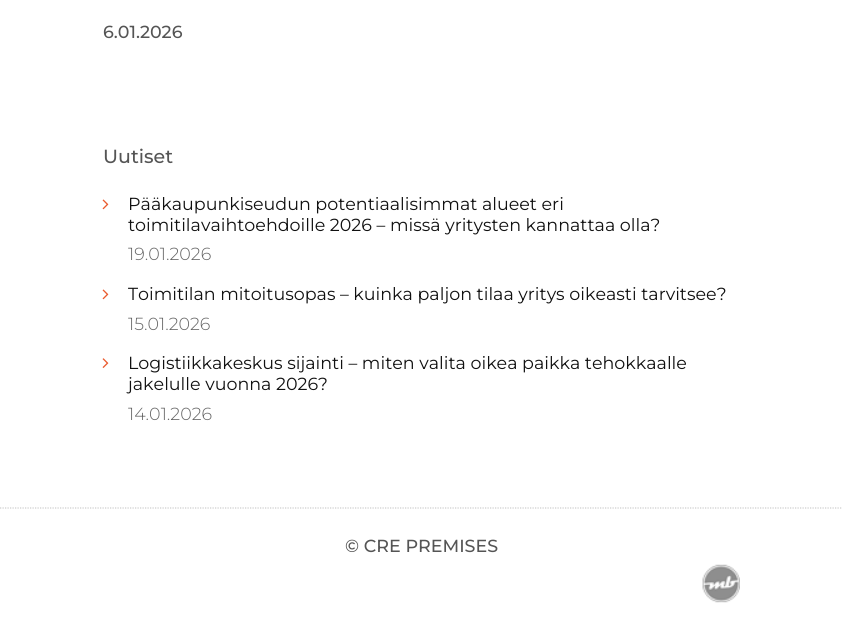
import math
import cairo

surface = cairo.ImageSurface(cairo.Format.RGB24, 842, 621)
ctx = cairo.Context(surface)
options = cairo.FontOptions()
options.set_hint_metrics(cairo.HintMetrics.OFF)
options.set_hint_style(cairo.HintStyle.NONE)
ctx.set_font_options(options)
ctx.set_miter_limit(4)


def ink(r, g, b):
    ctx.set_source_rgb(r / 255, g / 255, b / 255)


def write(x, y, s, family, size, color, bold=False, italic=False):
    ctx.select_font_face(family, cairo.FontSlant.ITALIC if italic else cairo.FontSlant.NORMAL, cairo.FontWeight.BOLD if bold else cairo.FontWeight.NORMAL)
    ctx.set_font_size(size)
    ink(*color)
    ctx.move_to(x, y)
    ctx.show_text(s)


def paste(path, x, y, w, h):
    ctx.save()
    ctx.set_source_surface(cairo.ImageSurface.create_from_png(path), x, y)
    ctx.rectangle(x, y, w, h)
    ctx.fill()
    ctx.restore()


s1 = dict(family="Montserrat Thin", size=17.5, color=(85, 85, 85))
s2 = dict(family="Montserrat Thin", size=19, color=(85, 85, 85))
s3 = dict(family="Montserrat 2 Thin", size=17.5, color=(17, 17, 17))
s4 = dict(family="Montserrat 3 Thin", size=17.5, color=(102, 102, 102))

ink(255, 255, 255)
ctx.paint()
write(103, 38, "6.01.2026", **s1)
write(103, 163, "Uutiset", **s2)
paste("pic1.png", 102, 199, 7, 11)
write(128, 210, "Pääkaupunkiseudun potentiaalisimmat alueet eri", **s3)
write(128, 231, "toimitilavaihtoehdoille 2026 – missä yritysten kannattaa olla?", **s3)
write(128, 260, "19.01.2026", **s4)
paste("pic1.png", 102, 289, 7, 11)
write(128, 300, "Toimitilan mitoitusopas – kuinka paljon tilaa yritys oikeasti tarvitsee?", **s3)
write(128, 330, "15.01.2026", **s4)
paste("pic2.png", 102, 358, 7, 10)
write(128, 369, "Logistiikkakeskus sijainti – miten valita oikea paikka tehokkaalle", **s3)
write(128, 390, "jakelulle vuonna 2026?", **s3)
write(128, 420, "14.01.2026", **s4)
ctx.new_path()
ctx.move_to(0, 508)
ctx.line_to(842.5, 508)
ink(204, 204, 204)
ctx.set_line_width(1.2)
ctx.set_dash([1.25, 1.25])
ctx.stroke()
write(345, 552, "© CRE PREMISES", **s1)
paste("pic3.png", 702, 564, 38, 39)
surface.write_to_png("screenshot.png")
